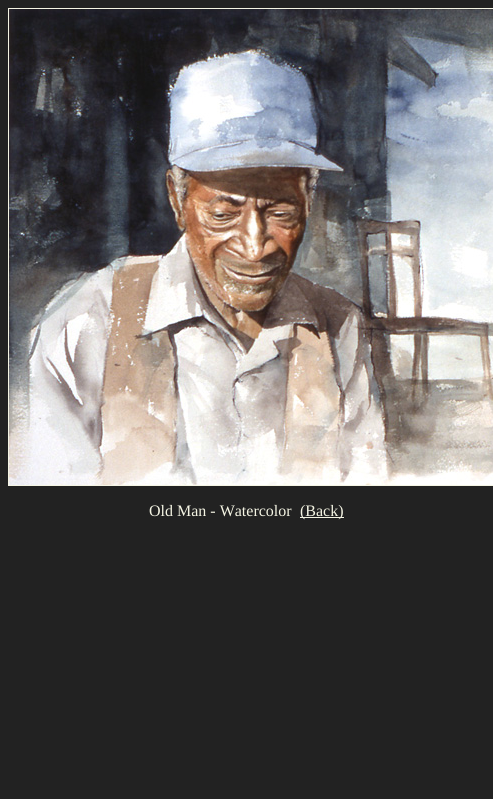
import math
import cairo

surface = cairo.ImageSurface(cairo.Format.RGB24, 493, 799)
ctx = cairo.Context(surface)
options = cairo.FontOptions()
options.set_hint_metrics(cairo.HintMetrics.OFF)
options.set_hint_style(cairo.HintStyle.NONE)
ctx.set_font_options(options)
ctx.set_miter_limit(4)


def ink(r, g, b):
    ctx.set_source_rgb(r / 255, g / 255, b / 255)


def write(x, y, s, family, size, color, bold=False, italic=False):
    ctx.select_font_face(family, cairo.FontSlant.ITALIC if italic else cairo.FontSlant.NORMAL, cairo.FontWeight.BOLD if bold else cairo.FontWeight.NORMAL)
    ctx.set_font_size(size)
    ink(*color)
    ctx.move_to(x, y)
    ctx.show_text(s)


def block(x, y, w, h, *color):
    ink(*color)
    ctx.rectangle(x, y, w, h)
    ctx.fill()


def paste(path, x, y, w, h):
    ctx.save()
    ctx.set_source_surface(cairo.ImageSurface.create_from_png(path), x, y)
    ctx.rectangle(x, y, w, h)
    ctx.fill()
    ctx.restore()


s1 = dict(family="Liberation Serif", size=16, color=(245, 245, 228))

ink(34, 34, 34)
ctx.paint()
ctx.rectangle(8.5, 8.5, 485, 477)
ink(245, 245, 228)
ctx.set_line_width(1)
ctx.stroke()
paste("pic1.png", 9, 9, 484, 476)
write(149, 516, "Old Man - Watercolor", **s1)
block(300, 517, 44, 1, 245, 245, 228)
write(300, 516, "(Back)", **s1)
surface.write_to_png("screenshot.png")
